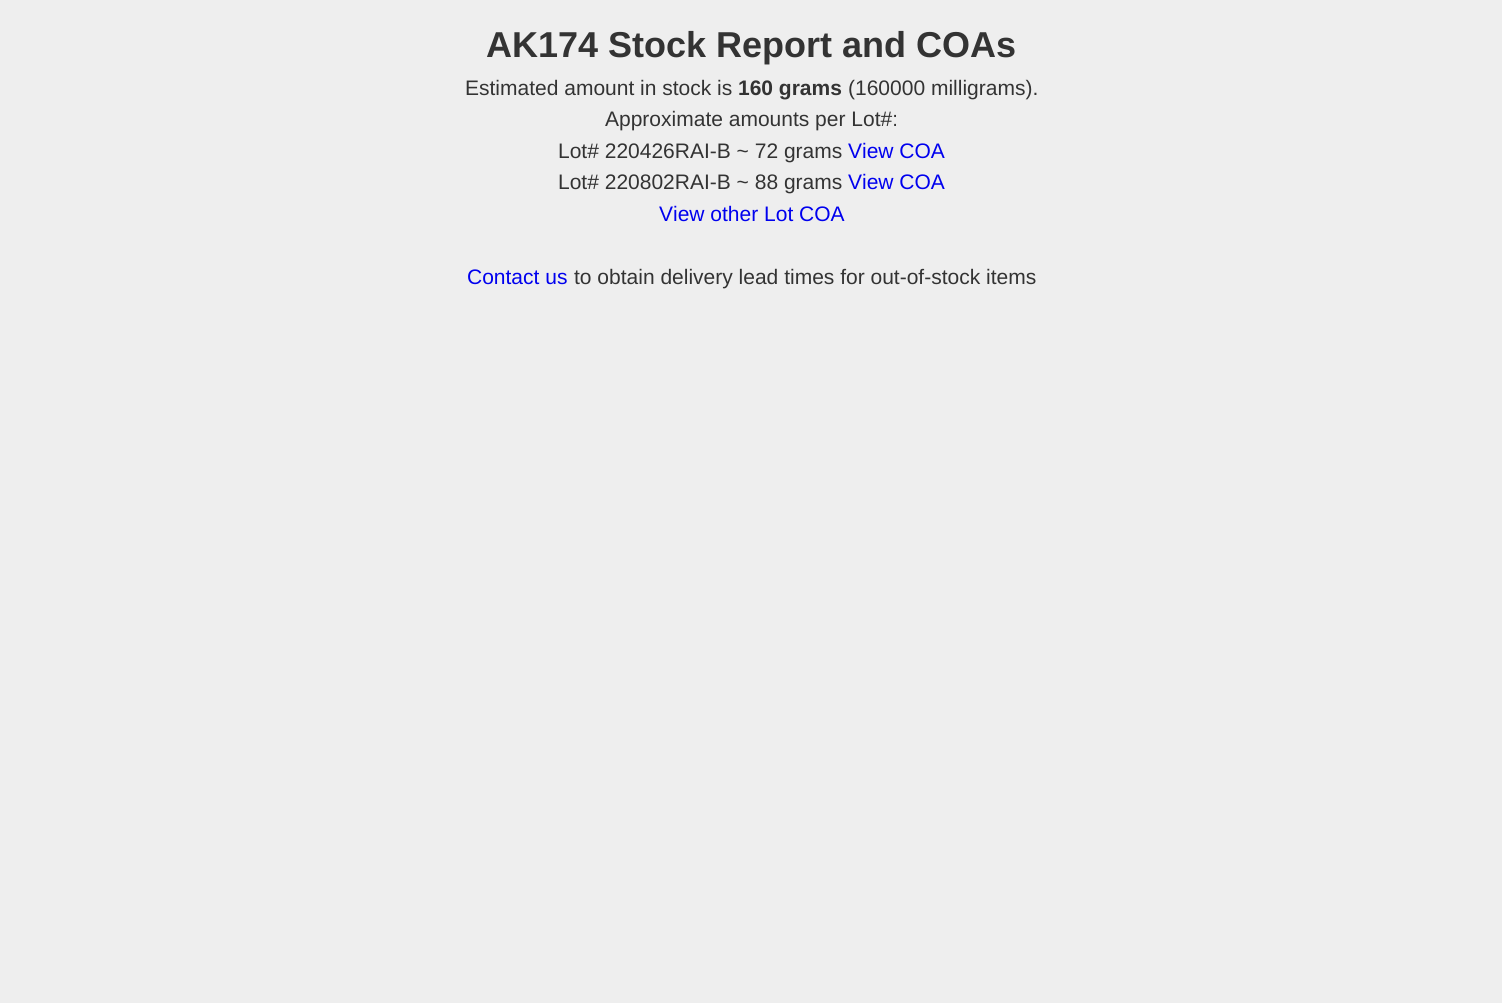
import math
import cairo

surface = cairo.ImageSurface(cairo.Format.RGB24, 1502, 1003)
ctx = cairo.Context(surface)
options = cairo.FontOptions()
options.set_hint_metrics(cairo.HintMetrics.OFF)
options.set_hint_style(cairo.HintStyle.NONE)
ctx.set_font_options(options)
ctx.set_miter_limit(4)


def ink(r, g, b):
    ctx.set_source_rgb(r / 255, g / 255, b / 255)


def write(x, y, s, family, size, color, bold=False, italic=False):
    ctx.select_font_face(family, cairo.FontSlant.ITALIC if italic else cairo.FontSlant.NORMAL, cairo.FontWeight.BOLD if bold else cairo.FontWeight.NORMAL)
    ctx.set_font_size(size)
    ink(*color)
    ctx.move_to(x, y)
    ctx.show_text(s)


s1 = dict(family="Liberation Sans", size=36, color=(51, 51, 51), bold=True)
s2 = dict(family="Liberation Sans", size=21, color=(51, 51, 51))
s3 = dict(family="Liberation Sans", size=21, color=(51, 51, 51), bold=True)
s4 = dict(family="Liberation Sans", size=21, color=(0, 0, 238))

ink(238, 238, 238)
ctx.paint()
write(486, 57, "AK174 Stock Report and COAs", **s1)
write(465, 95, "Estimated amount in stock is", **s2)
write(738, 95, "160 grams", **s3)
write(848, 95, "(160000 milligrams).", **s2)
write(605, 126, "Approximate amounts per Lot#:", **s2)
write(558, 158, "Lot# 220426RAI-B ~ 72 grams", **s2)
write(848, 158, "View COA", **s4)
write(558, 189, "Lot# 220802RAI-B ~ 88 grams", **s2)
write(848, 189, "View COA", **s4)
write(659, 221, "View other Lot COA", **s4)
write(467, 284, "Contact us", **s4)
write(574, 284, "to obtain delivery lead times for out-of-stock items", **s2)
surface.write_to_png("screenshot.png")
